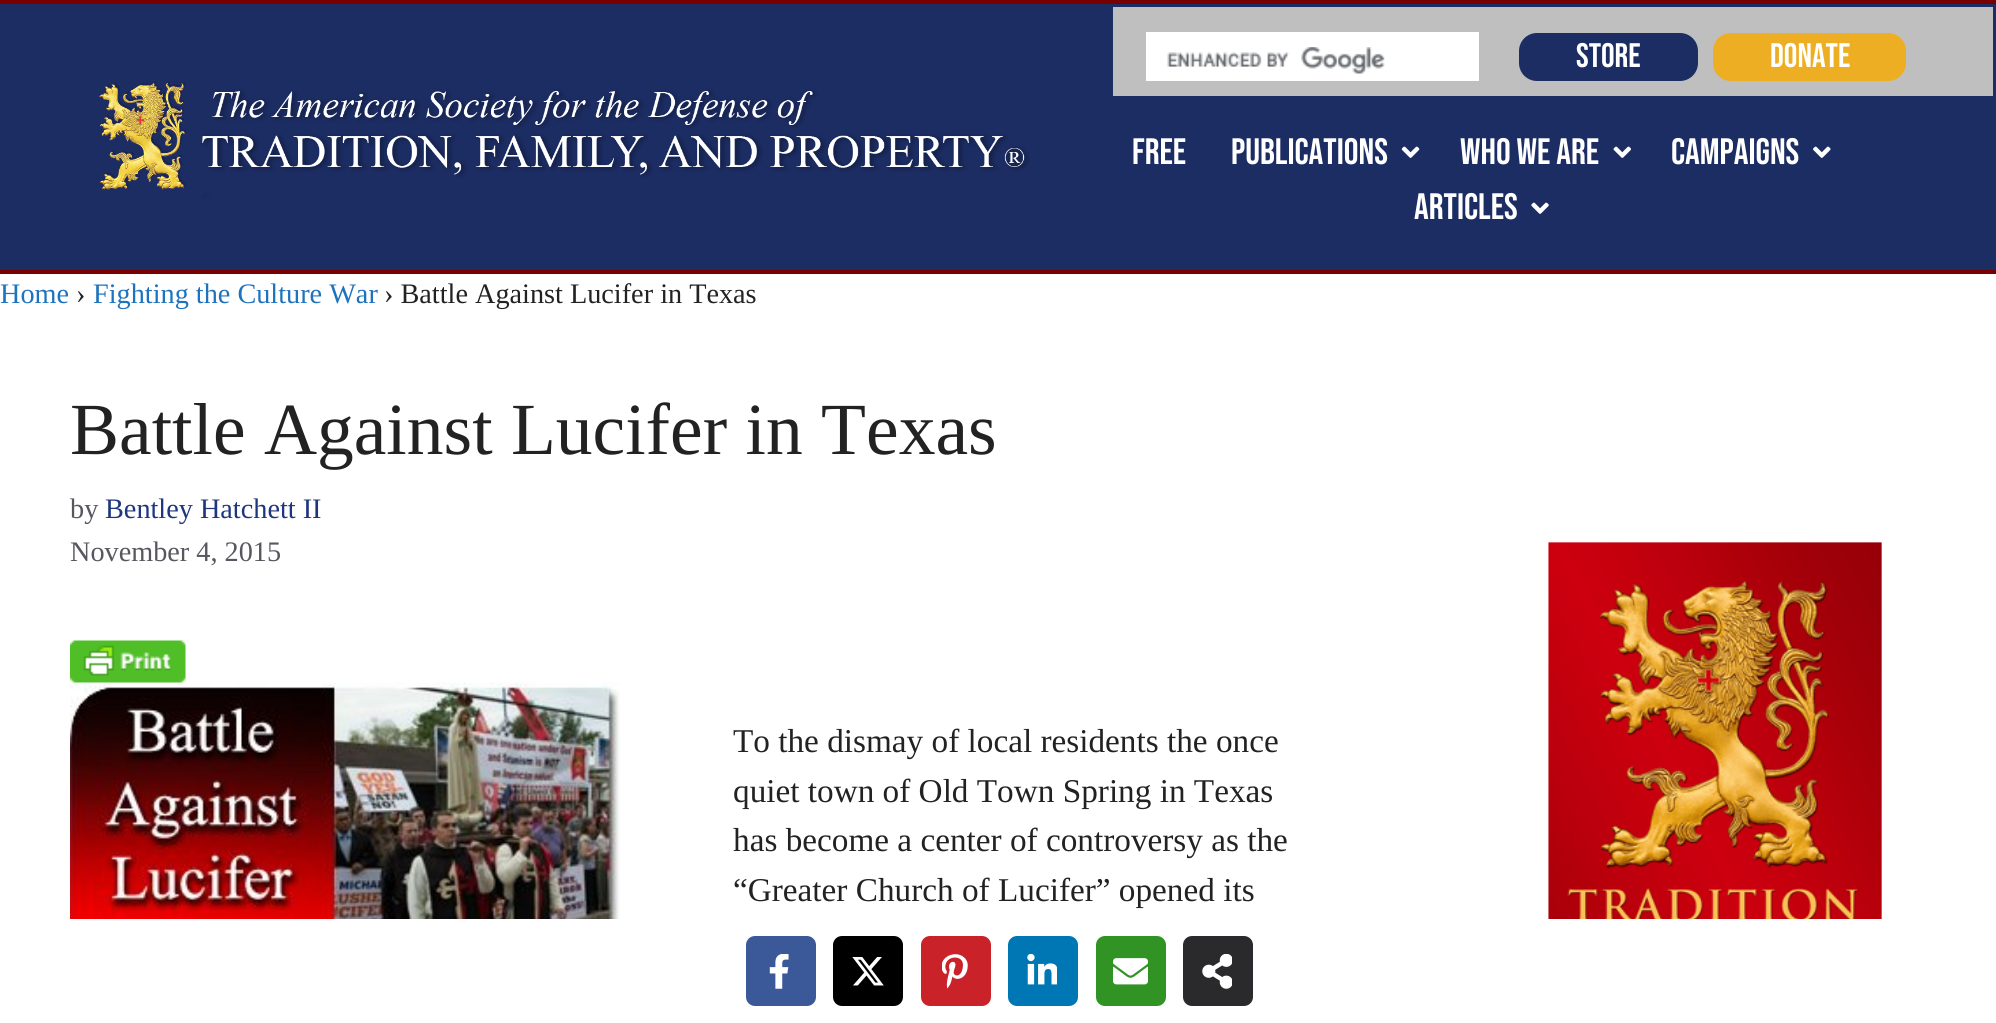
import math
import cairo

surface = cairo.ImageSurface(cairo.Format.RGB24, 1996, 1023)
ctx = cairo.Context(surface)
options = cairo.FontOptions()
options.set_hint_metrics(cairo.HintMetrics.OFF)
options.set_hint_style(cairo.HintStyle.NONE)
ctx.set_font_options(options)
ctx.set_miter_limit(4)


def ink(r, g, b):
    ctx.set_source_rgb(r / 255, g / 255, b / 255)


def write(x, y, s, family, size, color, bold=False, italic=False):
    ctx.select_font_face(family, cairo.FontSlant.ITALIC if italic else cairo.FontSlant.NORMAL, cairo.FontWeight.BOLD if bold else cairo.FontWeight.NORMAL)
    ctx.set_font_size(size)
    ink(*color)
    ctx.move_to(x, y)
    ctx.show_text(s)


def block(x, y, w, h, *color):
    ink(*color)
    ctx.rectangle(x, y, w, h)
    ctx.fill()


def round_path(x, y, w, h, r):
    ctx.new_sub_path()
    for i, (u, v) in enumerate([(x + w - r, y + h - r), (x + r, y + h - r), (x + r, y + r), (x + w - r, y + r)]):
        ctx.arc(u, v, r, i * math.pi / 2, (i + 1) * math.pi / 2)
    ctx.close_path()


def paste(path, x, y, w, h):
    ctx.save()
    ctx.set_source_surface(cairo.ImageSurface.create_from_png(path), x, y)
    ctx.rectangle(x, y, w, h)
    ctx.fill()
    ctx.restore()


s1 = dict(family="Bebas Neue", size=34, color=(255, 255, 255))
s2 = dict(family="Bebas Neue", size=36.75, color=(255, 255, 255))
s3 = dict(family="Liberation Serif", size=28.25, color=(30, 115, 190))
s4 = dict(family="Liberation Serif", size=28.25, color=(34, 34, 34))
s5 = dict(family="Liberation Serif", size=73.5, color=(34, 34, 34))
s6 = dict(family="Liberation Serif", size=28.25, color=(87, 87, 96))
s7 = dict(family="Liberation Serif", size=28.25, color=(30, 54, 126))
s8 = dict(family="Liberation Serif", size=33.25, color=(34, 34, 34))

ink(255, 255, 255)
ctx.paint()
block(0, 4, 1996, 266, 28, 45, 100)
block(0, 0, 1996, 4, 121, 0, 0)
block(0, 270, 1996, 4, 121, 0, 0)
block(1113, 7, 880, 89, 191, 191, 191)
block(1146, 32, 333, 49, 255, 255, 255)
paste("pic1.png", 1167, 47, 218, 27)
ink(28, 45, 100)
round_path(1519, 33, 179, 48, 18)
ctx.fill()
write(1576, 67, "STORE", **s1)
ink(237, 174, 36)
round_path(1713, 33, 193, 48, 18)
ctx.fill()
write(1770, 67, "DONATE", **s1)
paste("pic2.png", 99, 81, 931, 118)
write(1132, 164, "FREE", **s2)
write(1231, 164, "PUBLICATIONS", **s2)
paste("pic3.png", 1401, 146, 19, 12)
write(1460, 164, "WHO WE ARE", **s2)
paste("pic4.png", 1613, 146, 18, 12)
write(1671, 164, "CAMPAIGNS", **s2)
paste("pic5.png", 1813, 146, 18, 12)
write(1414, 219, "ARTICLES", **s2)
paste("pic6.png", 1531, 202, 18, 12)
write(0, 303, "Home", **s3)
write(76, 303, "›", **s4)
write(93, 303, "Fighting the Culture War", **s3)
write(384, 303, "› Battle Against Lucifer in Texas", **s4)
write(70, 454, "Battle Against Lucifer in Texas", **s5)
write(70, 518, "by", **s6)
write(105, 518, "Bentley Hatchett II", **s7)
write(70, 561, "November 4, 2015", **s6)
paste("pic8.png", 70, 682, 551, 237)
paste("pic7.png", 70, 640, 116, 43)
write(733, 752, "To the dismay of local residents the once", **s8)
write(733, 802, "quiet town of Old Town Spring in Texas", **s8)
write(733, 851, "has become a center of controversy as the", **s8)
write(733, 901, "“Greater Church of Lucifer” opened its", **s8)
paste("pic9.png", 1548, 542, 334, 377)
ink(59, 89, 152)
round_path(746, 936, 70, 70, 9)
ctx.fill()
paste("pic10.png", 769, 954, 20, 35)
ink(0, 0, 0)
round_path(833, 936, 70, 70, 9)
ctx.fill()
paste("pic11.png", 852, 957, 32, 29)
ink(201, 34, 40)
round_path(921, 936, 70, 70, 9)
ctx.fill()
paste("pic12.png", 942, 954, 26, 35)
ink(0, 119, 181)
round_path(1008, 936, 70, 70, 9)
ctx.fill()
paste("pic13.png", 1027, 954, 30, 31)
ink(49, 147, 36)
round_path(1096, 936, 70, 70, 9)
ctx.fill()
paste("pic14.png", 1113, 958, 35, 27)
ink(42, 42, 44)
round_path(1183, 936, 70, 70, 9)
ctx.fill()
paste("pic15.png", 1202, 954, 30, 35)
surface.write_to_png("screenshot.png")
